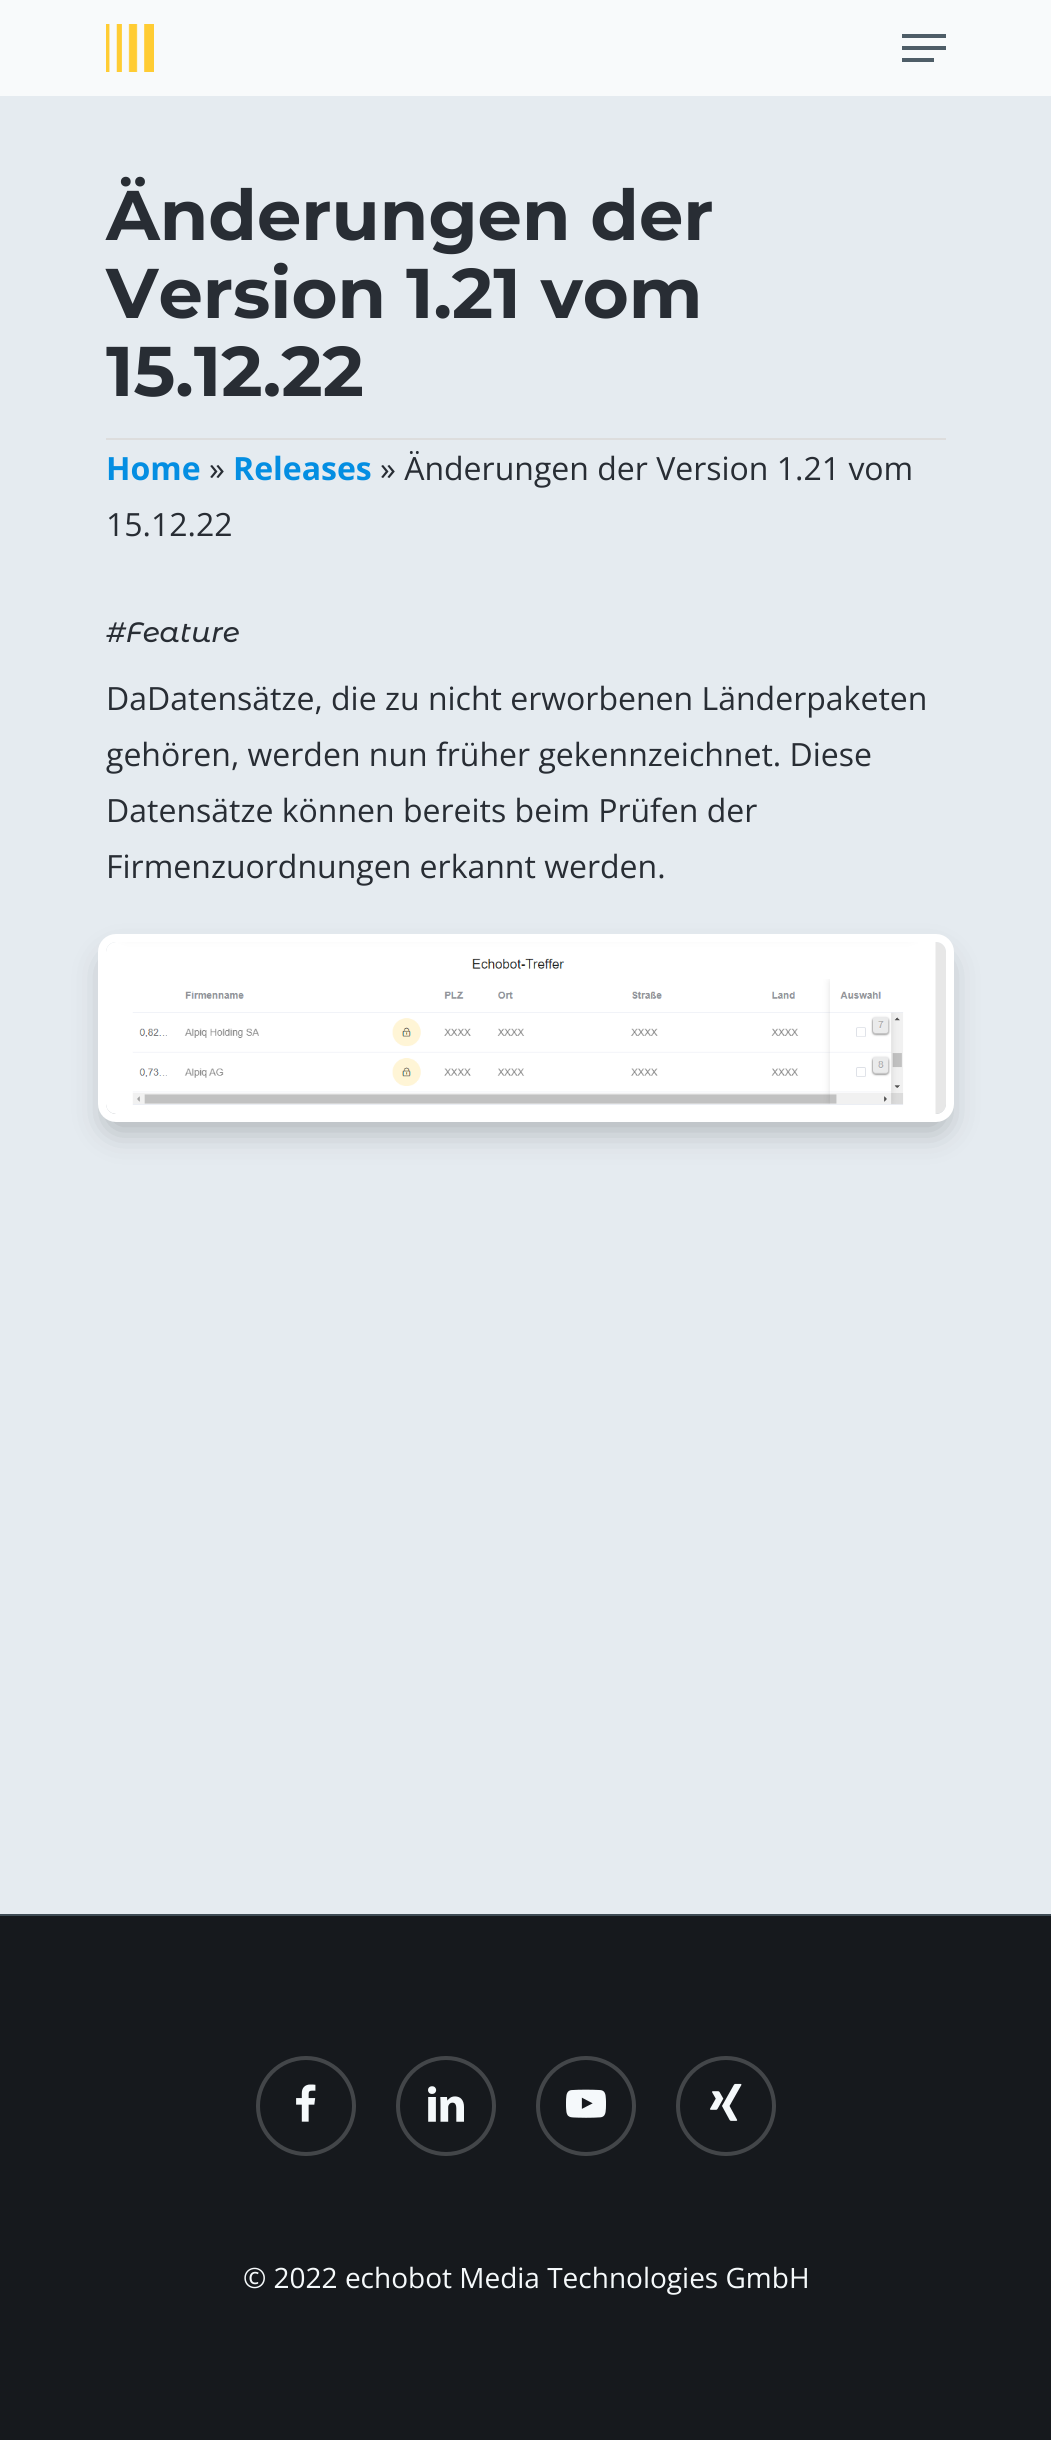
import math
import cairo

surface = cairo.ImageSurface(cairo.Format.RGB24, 1051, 2440)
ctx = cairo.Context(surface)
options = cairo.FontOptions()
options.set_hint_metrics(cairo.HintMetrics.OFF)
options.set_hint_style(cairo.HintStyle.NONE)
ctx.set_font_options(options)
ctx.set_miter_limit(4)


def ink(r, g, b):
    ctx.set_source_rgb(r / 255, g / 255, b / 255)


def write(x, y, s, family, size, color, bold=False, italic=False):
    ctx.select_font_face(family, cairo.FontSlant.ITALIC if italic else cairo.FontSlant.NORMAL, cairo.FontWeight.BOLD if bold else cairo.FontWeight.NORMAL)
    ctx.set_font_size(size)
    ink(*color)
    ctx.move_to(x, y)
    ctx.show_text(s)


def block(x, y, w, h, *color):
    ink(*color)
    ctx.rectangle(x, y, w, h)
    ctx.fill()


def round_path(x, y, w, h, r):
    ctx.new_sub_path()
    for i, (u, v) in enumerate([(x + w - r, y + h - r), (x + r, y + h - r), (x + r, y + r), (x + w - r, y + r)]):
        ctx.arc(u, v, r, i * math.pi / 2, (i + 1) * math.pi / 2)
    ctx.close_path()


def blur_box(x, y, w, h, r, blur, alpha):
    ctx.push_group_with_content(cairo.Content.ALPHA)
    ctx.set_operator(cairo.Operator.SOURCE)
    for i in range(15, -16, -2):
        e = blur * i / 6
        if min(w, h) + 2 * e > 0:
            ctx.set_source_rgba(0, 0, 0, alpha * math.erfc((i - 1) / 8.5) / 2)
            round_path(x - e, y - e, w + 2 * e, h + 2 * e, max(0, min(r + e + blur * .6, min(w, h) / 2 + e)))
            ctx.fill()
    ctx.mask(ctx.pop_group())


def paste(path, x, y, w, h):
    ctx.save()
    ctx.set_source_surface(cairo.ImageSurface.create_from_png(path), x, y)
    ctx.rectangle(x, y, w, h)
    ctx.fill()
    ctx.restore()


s1 = dict(family="Montserrat", size=70.25, color=(40, 45, 52), bold=True)
s2 = dict(family="Open Sans", size=32, color=(4, 142, 226), bold=True)
s3 = dict(family="Open Sans", size=32, color=(40, 45, 52))
s4 = dict(family="Montserrat Alternates Medium", size=28, color=(40, 45, 52), italic=True)
s5 = dict(family="Open Sans", size=28, color=(245, 249, 251))

ink(229, 235, 240)
ctx.paint()
block(0, 0, 1051, 96, 248, 250, 251)
paste("pic1.png", 106, 24, 48, 48)
block(902, 34, 44, 4, 78, 93, 103)
block(902, 58, 32, 4, 78, 93, 103)
block(902, 46, 44, 4, 78, 93, 103)
block(106, 438, 840, 2, 221, 221, 221)
write(106, 240, "Änderungen der", **s1)
write(106, 318, "Version 1.21 vom", **s1)
write(106, 396, "15.12.22", **s1)
write(106, 480, "Home", **s2)
write(209, 480, "»", **s3)
write(233, 480, "Releases", **s2)
write(380, 480, "» Änderungen der Version 1.21 vom", **s3)
write(106, 536, "15.12.22", **s3)
write(106, 642, "#Feature", **s4)
write(106, 710, "DaDatensätze, die zu nicht erworbenen Länderpaketen", **s3)
write(106, 766, "gehören, werden nun früher gekennzeichnet. Diese", **s3)
write(106, 822, "Datensätze können bereits beim Prüfen der", **s3)
write(106, 878, "Firmenzuordnungen erkannt werden.", **s3)
ink(0, 0, 0)
blur_box(106, 958, 840, 172, 10, 16, 0.25)
paste("pic2.png", 106, 942, 840, 172)
round_path(102, 938, 848, 180, 14)
ink(255, 255, 255)
ctx.set_line_width(8)
ctx.stroke()
block(0, 1916, 1051, 524, 22, 25, 29)
block(0, 1914, 1051, 2, 63, 76, 85)
paste("pic3.png", 296, 2084, 20, 38)
ctx.arc(306, 2106, 48, 0, 2 * math.pi)
ink(67, 70, 73)
ctx.set_line_width(4)
ctx.stroke()
paste("pic4.png", 428, 2086, 36, 36)
ctx.arc(446, 2106, 48, 0, 2 * math.pi)
ctx.stroke()
paste("pic5.png", 566, 2089, 40, 29)
ctx.arc(586, 2106, 48, 0, 2 * math.pi)
ctx.stroke()
paste("pic6.png", 710, 2083, 32, 38)
ctx.arc(726, 2106, 48, 0, 2 * math.pi)
ctx.stroke()
write(243, 2288, "© 2022 echobot Media Technologies GmbH", **s5)
surface.write_to_png("screenshot.png")
